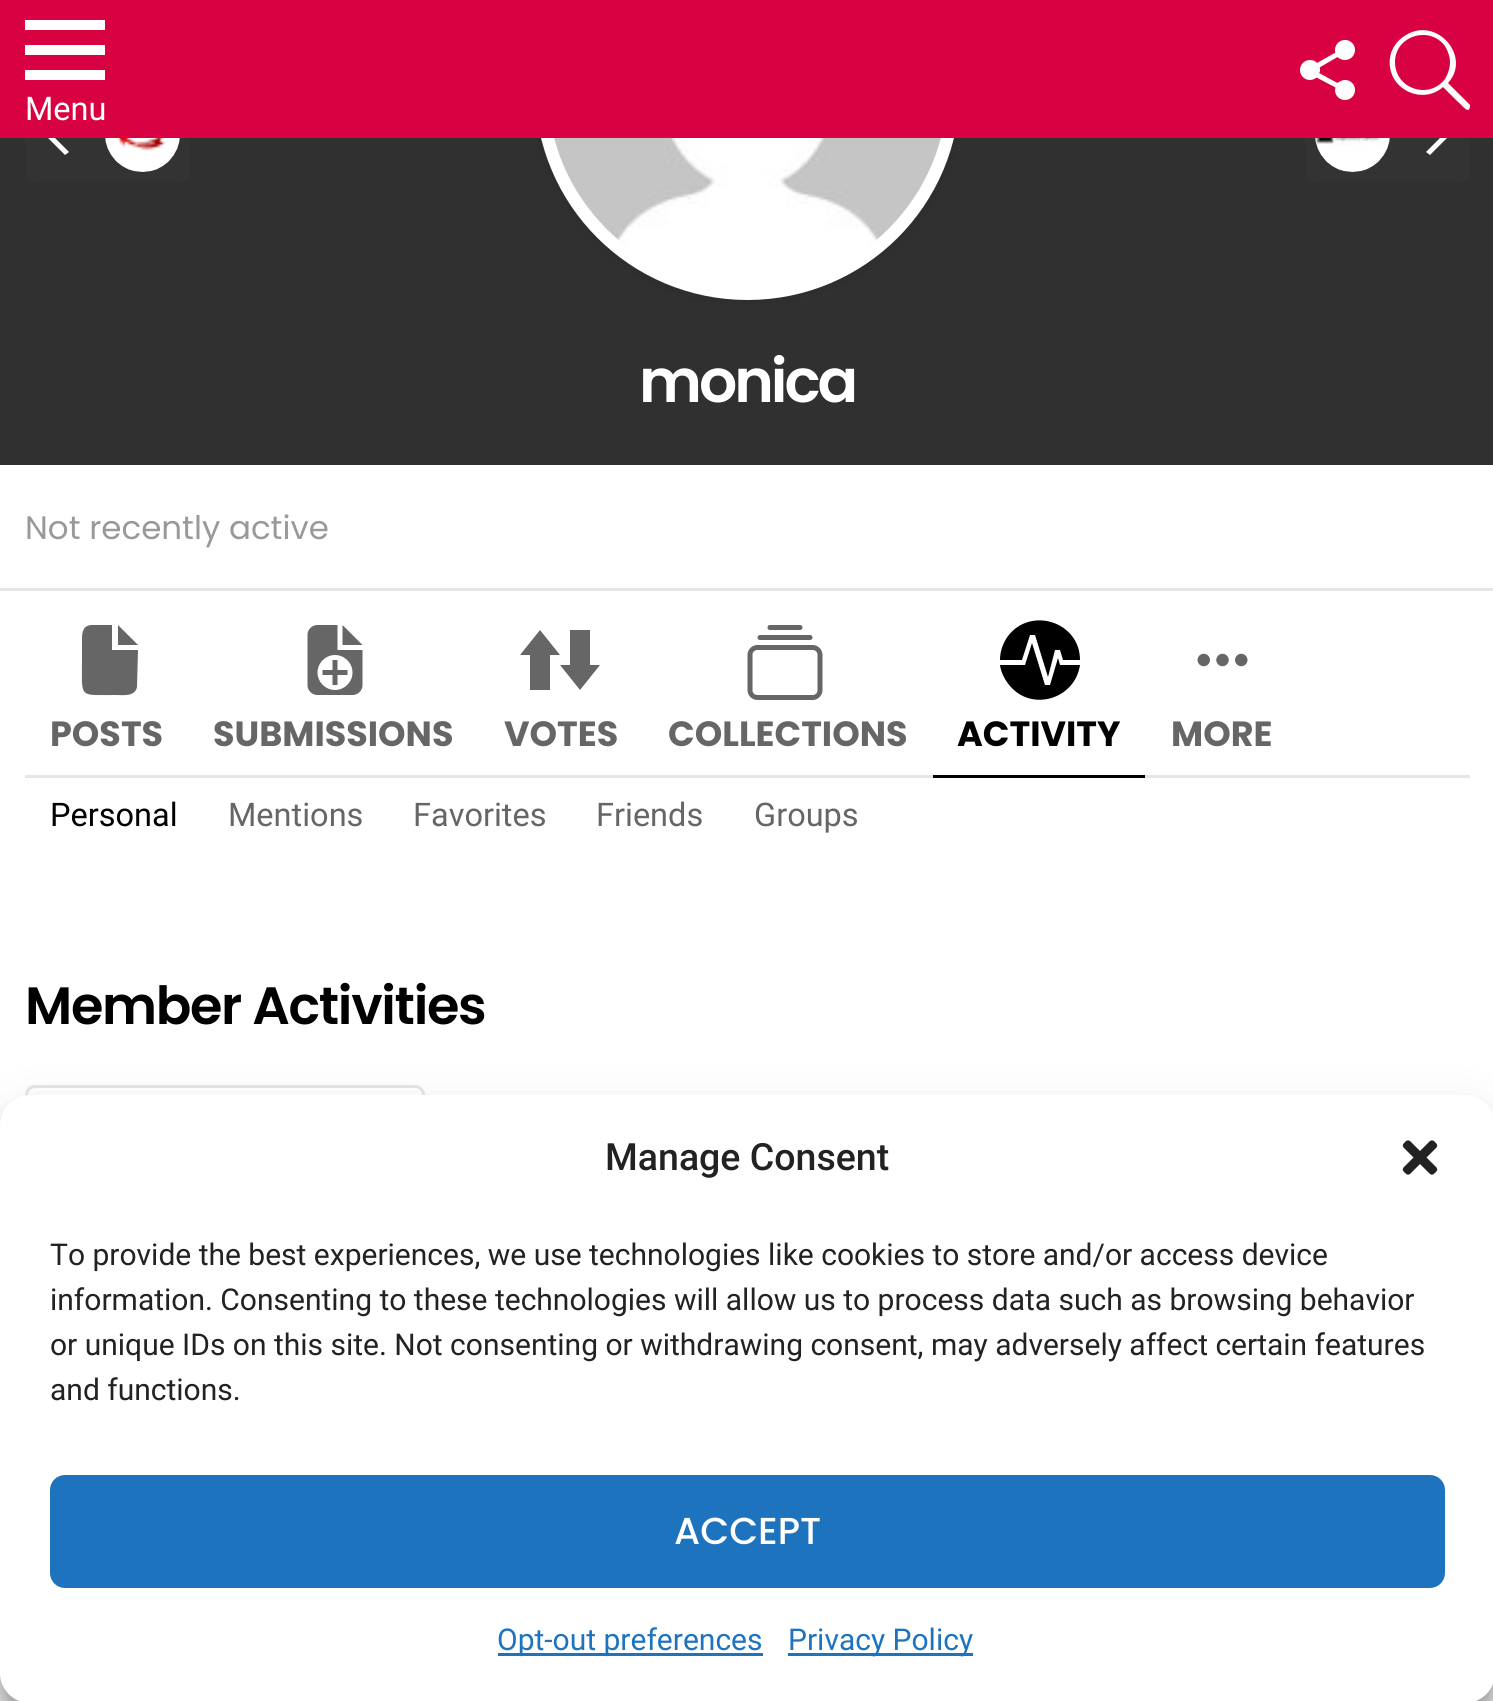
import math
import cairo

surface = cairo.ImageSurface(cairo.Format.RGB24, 1493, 1701)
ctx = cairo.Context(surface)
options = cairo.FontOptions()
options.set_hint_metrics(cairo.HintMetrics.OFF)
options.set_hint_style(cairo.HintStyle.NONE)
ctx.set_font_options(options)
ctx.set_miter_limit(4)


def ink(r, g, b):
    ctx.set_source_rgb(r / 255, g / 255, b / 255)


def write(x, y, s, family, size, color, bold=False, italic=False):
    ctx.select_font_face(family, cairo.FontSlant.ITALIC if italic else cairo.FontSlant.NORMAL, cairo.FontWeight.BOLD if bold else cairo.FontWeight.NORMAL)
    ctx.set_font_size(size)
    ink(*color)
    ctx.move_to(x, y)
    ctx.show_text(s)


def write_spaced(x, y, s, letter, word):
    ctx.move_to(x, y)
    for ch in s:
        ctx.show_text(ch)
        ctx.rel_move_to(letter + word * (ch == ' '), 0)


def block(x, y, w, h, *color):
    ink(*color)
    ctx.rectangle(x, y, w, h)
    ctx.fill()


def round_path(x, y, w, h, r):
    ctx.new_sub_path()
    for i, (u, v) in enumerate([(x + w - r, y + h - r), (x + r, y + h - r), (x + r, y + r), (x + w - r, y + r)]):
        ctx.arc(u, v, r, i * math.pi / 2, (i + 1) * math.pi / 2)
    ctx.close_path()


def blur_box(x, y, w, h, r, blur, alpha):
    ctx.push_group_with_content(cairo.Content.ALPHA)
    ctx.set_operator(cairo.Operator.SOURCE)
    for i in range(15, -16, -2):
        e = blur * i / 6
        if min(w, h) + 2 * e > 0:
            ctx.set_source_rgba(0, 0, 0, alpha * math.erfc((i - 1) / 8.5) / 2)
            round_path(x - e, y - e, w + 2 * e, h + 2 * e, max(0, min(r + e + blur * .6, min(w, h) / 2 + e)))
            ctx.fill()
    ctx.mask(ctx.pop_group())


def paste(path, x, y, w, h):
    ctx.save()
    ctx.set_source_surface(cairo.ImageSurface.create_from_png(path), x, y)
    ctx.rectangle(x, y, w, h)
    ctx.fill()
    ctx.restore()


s1 = dict(family="Roboto", size=32.5, color=(255, 255, 255))
s2 = dict(family="Poppins", size=32.5, color=(153, 153, 153))
s3 = dict(family="Poppins", size=35, color=(102, 102, 102), bold=True)
s4 = dict(family="Poppins", size=35, color=(0, 0, 0), bold=True)
s5 = dict(family="Roboto", size=32.5, color=(0, 0, 0))
s6 = dict(family="Roboto", size=32.5, color=(102, 102, 102))
s7 = dict(family="Roboto Medium", size=37.5, color=(34, 34, 34))
s8 = dict(family="Roboto", size=30, color=(34, 34, 34))
s9 = dict(family="Poppins Medium", size=37.5, color=(255, 255, 255))
s10 = dict(family="Roboto", size=30, color=(30, 115, 190))

ink(255, 255, 255)
ctx.paint()
block(0, 138, 1493, 327, 48, 48, 48)
ink(51, 51, 51)
round_path(25, 88, 165, 95, 10)
ctx.fill()
ink(255, 255, 255)
ctx.new_path()
ctx.move_to(85, 132)
ctx.line_to(55, 132)
ctx.line_to(69, 118)
ctx.line_to(65, 115)
ctx.line_to(45, 135)
ctx.line_to(65, 155)
ctx.line_to(69, 152)
ctx.line_to(55, 138)
ctx.line_to(85, 138)
ctx.close_path()
ctx.fill()
ink(51, 51, 51)
round_path(1305, 88, 165, 95, 10)
ctx.fill()
ink(255, 255, 255)
ctx.new_path()
ctx.move_to(1410, 138)
ctx.line_to(1440, 138)
ctx.line_to(1426, 152)
ctx.line_to(1430, 155)
ctx.line_to(1450, 135)
ctx.line_to(1430, 115)
ctx.line_to(1426, 118)
ctx.line_to(1440, 132)
ctx.line_to(1410, 132)
ctx.close_path()
ctx.fill()
ink(0, 0, 0)
blur_box(535, -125, 425, 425, 212.5, 6, 0.1)
ink(255, 255, 255)
ctx.arc(747.5, 87.5, 212.5, 0, 2 * math.pi)
ctx.fill()
block(0, 0, 1493, 138, 216, 2, 66)
ink(255, 255, 255)
ctx.new_path()
ctx.move_to(25, 20)
ctx.line_to(105, 20)
ctx.line_to(105, 30)
ctx.line_to(25, 30)
ctx.close_path()
ctx.move_to(25, 45)
ctx.line_to(105, 45)
ctx.line_to(105, 55)
ctx.line_to(25, 55)
ctx.close_path()
ctx.move_to(25, 70)
ctx.line_to(105, 70)
ctx.line_to(105, 80)
ctx.line_to(25, 80)
ctx.close_path()
ctx.fill()
write(25, 120, "Menu", **s1)
paste("pic1.png", 1300, 40, 55, 60)
ctx.new_path()
ctx.move_to(1470, 105)
ctx.line_to(1448, 83)
ctx.curve_to(1472, 57, 1437, 16, 1406, 35)
ctx.curve_to(1399, 39, 1394, 45, 1391, 53)
ctx.curve_to(1388, 63, 1390, 75, 1397, 83)
ctx.curve_to(1409, 97, 1430, 99, 1443, 87)
ctx.line_to(1458, 102)
ctx.curve_to(1460, 103, 1465, 110, 1468, 110)
ctx.curve_to(1470, 109, 1470, 107, 1470, 105)
ctx.close_path()
ctx.move_to(1395, 62)
ctx.curve_to(1395, 36, 1429, 25, 1445, 46)
ctx.curve_to(1448, 51, 1450, 57, 1450, 62)
ctx.curve_to(1450, 68, 1448, 74, 1445, 79)
ctx.curve_to(1429, 100, 1395, 89, 1395, 62)
ctx.close_path()
ctx.fill()
paste("pic2.png", 105, 138, 75, 34)
paste("pic3.png", 1315, 138, 75, 34)
paste("pic4.png", 554, 138, 387, 108)
ctx.select_font_face("Poppins SemiBold")
ctx.set_font_size(60)
write_spaced(639, 402, "monica", -3, 0)
write(25, 539, "Not recently active", **s2)
block(0, 588, 1493, 3, 230, 230, 230)
block(25, 775, 1445, 3, 230, 230, 230)
ink(102, 102, 102)
ctx.new_path()
ctx.move_to(112, 650)
ctx.line_to(112, 625)
ctx.line_to(91, 625)
ctx.curve_to(81, 626, 82, 636, 82, 643)
ctx.line_to(82, 660)
ctx.curve_to(82, 699, 78, 695, 116, 695)
ctx.curve_to(123, 695, 135, 697, 137, 687)
ctx.line_to(138, 650)
ctx.close_path()
ctx.move_to(118, 625)
ctx.line_to(118, 645)
ctx.line_to(138, 645)
ctx.close_path()
ctx.fill()
write(50, 746, "POSTS", **s3)
paste("pic5.png", 307, 625, 56, 70)
write(213, 746, "SUBMISSIONS", **s3)
ctx.new_path()
ctx.move_to(520, 655)
ctx.line_to(540, 630)
ctx.line_to(560, 655)
ctx.close_path()
ctx.move_to(530, 655)
ctx.line_to(550, 655)
ctx.line_to(550, 690)
ctx.line_to(530, 690)
ctx.close_path()
ctx.move_to(560, 665)
ctx.line_to(580, 690)
ctx.line_to(600, 665)
ctx.close_path()
ctx.move_to(570, 630)
ctx.line_to(590, 630)
ctx.line_to(590, 665)
ctx.line_to(570, 665)
ctx.close_path()
ctx.fill()
write(504, 746, "VOTES", **s3)
paste("pic6.png", 747, 625, 76, 75)
write(668, 746, "COLLECTIONS", **s3)
block(933, 775, 212, 3, 0, 0, 0)
ctx.new_path()
ctx.move_to(1030, 635)
ctx.line_to(1035, 635)
ctx.line_to(1048, 677)
ctx.line_to(1055, 650)
ctx.line_to(1060, 650)
ctx.line_to(1063, 660)
ctx.line_to(1080, 660)
ctx.curve_to(1080, 622, 1031, 606, 1008, 636)
ctx.curve_to(1003, 643, 1000, 651, 1000, 660)
ctx.line_to(1022, 660)
ctx.close_path()
ctx.move_to(1060, 665)
ctx.line_to(1058, 658)
ctx.line_to(1050, 685)
ctx.line_to(1045, 685)
ctx.line_to(1032, 643)
ctx.line_to(1025, 665)
ctx.line_to(1000, 665)
ctx.curve_to(1001, 673, 1005, 680, 1010, 686)
ctx.curve_to(1032, 712, 1075, 699, 1080, 665)
ctx.close_path()
ctx.fill()
write(957, 746, "ACTIVITY", **s4)
paste("pic7.png", 1197, 653, 51, 14)
write(1171, 746, "MORE", **s3)
write(50, 826, "Personal", **s5)
write(228, 826, "Mentions", **s6)
write(413, 826, "Favorites", **s6)
write(596, 826, "Friends", **s6)
write(754, 826, "Groups", **s6)
ctx.select_font_face("Poppins SemiBold")
ctx.set_font_size(52.5)
ink(0, 0, 0)
write_spaced(25, 1024, "Member Activities", -1.3, 0)
round_path(26.5, 1086.5, 397, 87, 8.5)
ink(230, 230, 230)
ctx.set_line_width(3)
ctx.stroke()
block(0, 1673, 1493, 28, 242, 242, 242)
ink(0, 0, 0)
blur_box(0, 1110, 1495, 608, 30, 7.5, 0.23)
blur_box(0, 1120, 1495, 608, 30, 25, 0.19)
ink(255, 255, 255)
round_path(0, 1095, 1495, 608, 30)
ctx.fill()
write(605, 1170, "Manage Consent", **s7)
paste("pic8.png", 1402, 1140, 36, 35)
write(50, 1265, "To provide the best experiences, we use technologies like cookies to store and/or access device", **s8)
write(50, 1310, "information. Consenting to these technologies will allow us to process data such as browsing behavior", **s8)
write(50, 1355, "or unique IDs on this site. Not consenting or withdrawing consent, may adversely affect certain features", **s8)
write(50, 1400, "and functions.", **s8)
ink(30, 115, 190)
round_path(51.5, 1476.5, 1392, 110, 13.5)
ctx.fill_preserve()
ctx.stroke()
write(674, 1544, "ACCEPT", **s9)
block(498, 1653, 265, 3, 30, 115, 190)
write(497, 1650, "Opt-out preferences", **s10)
block(788, 1653, 185, 3, 30, 115, 190)
write(788, 1650, "Privacy Policy", **s10)
surface.write_to_png("screenshot.png")
